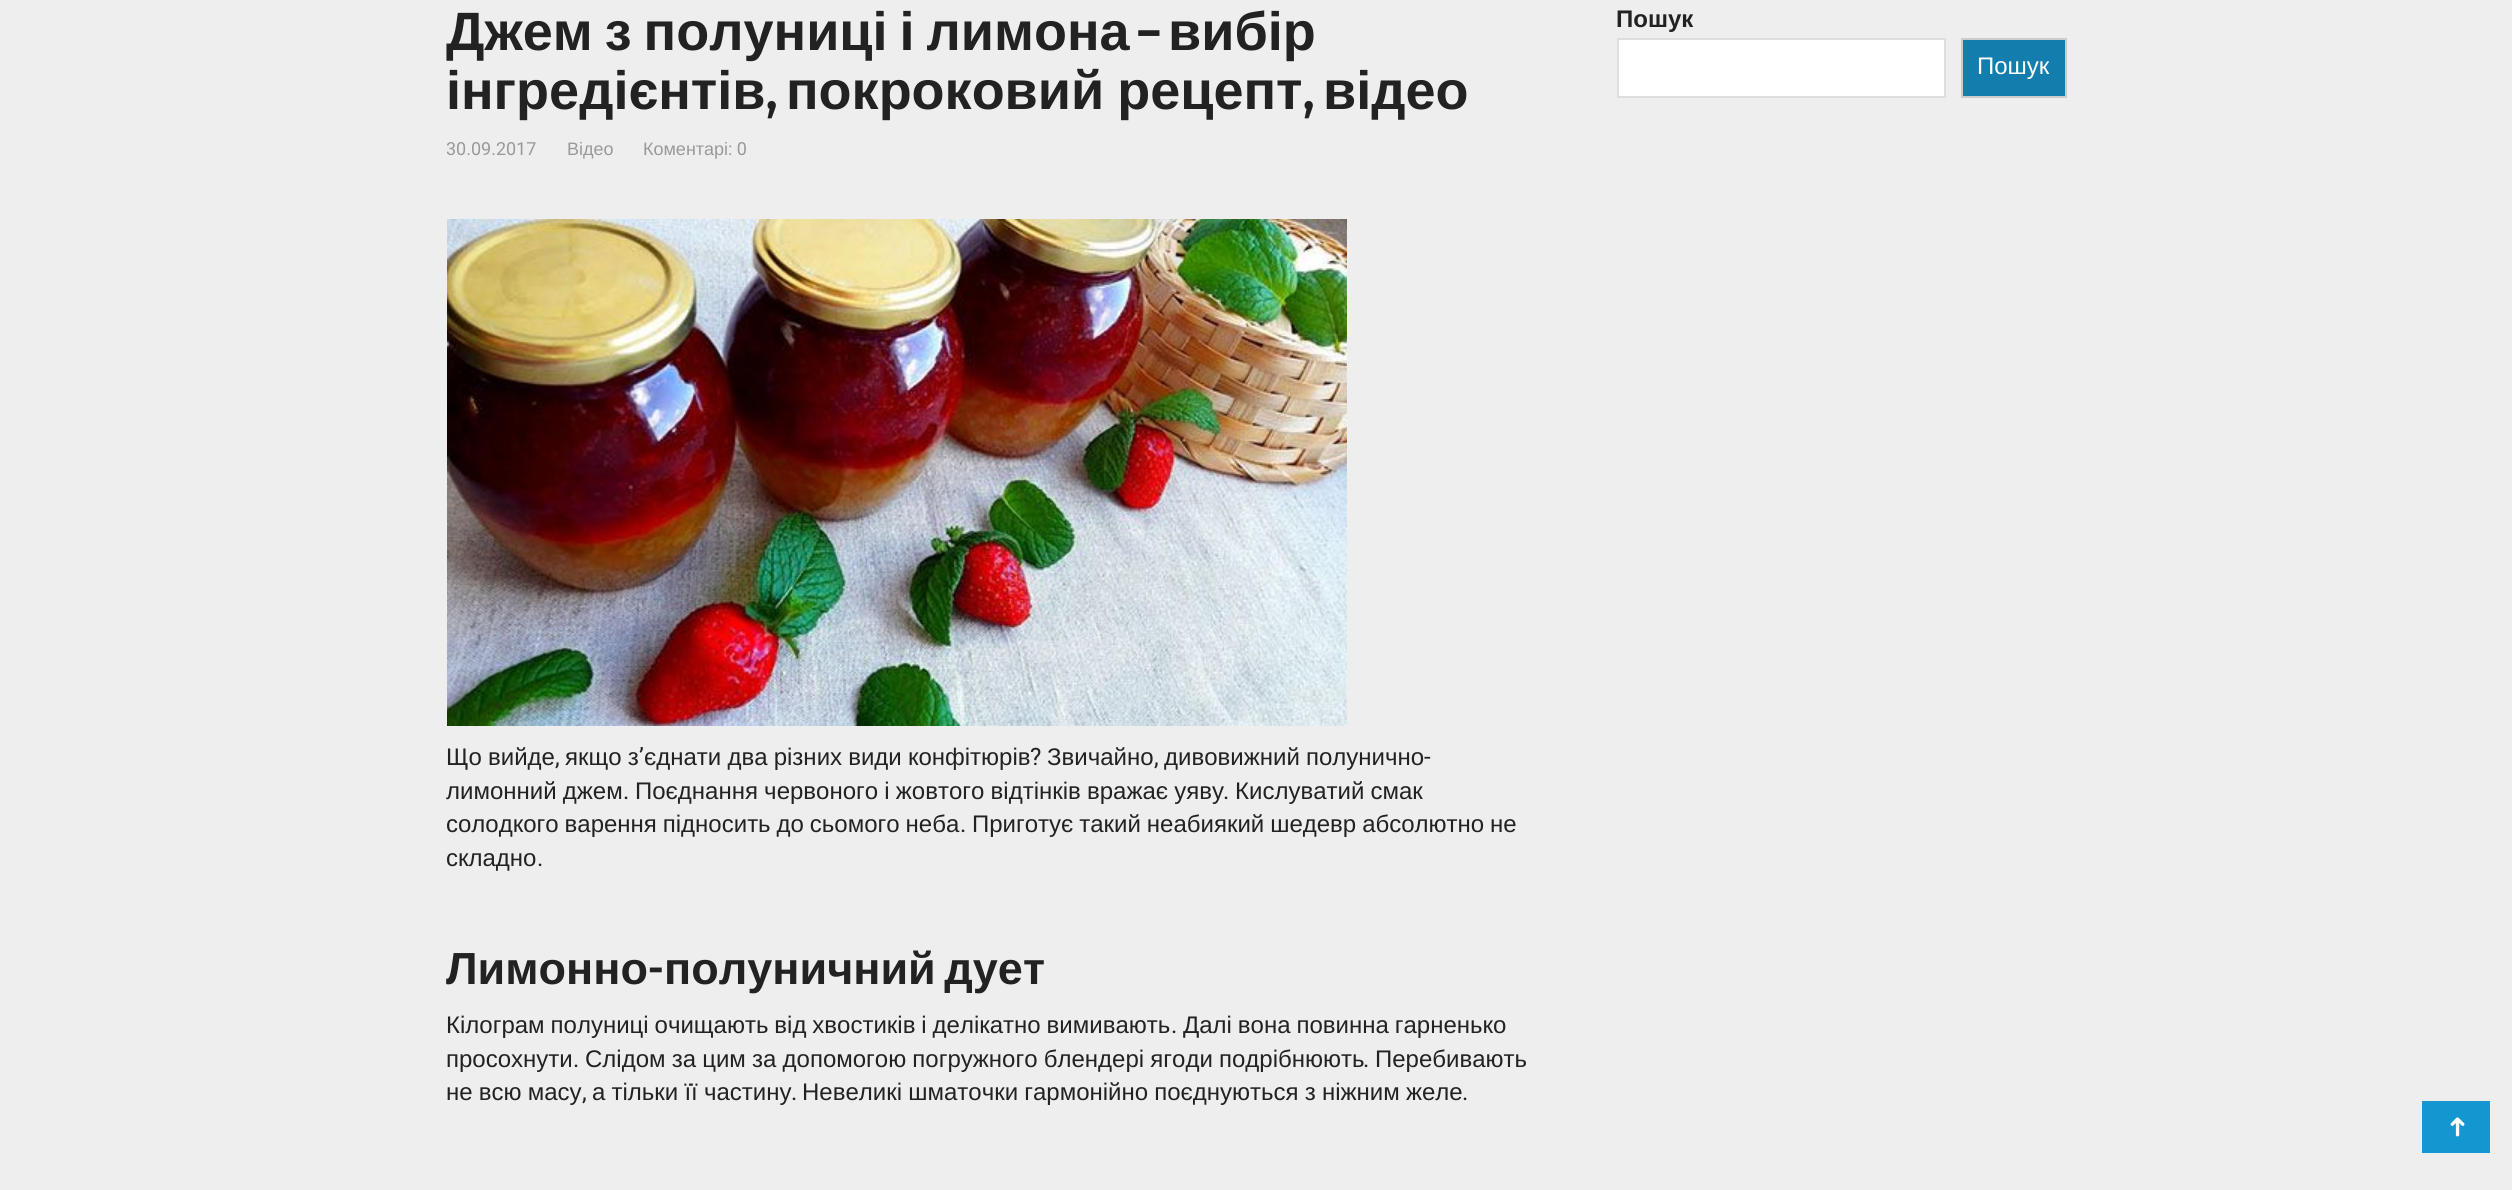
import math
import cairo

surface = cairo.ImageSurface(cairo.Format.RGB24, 2512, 1190)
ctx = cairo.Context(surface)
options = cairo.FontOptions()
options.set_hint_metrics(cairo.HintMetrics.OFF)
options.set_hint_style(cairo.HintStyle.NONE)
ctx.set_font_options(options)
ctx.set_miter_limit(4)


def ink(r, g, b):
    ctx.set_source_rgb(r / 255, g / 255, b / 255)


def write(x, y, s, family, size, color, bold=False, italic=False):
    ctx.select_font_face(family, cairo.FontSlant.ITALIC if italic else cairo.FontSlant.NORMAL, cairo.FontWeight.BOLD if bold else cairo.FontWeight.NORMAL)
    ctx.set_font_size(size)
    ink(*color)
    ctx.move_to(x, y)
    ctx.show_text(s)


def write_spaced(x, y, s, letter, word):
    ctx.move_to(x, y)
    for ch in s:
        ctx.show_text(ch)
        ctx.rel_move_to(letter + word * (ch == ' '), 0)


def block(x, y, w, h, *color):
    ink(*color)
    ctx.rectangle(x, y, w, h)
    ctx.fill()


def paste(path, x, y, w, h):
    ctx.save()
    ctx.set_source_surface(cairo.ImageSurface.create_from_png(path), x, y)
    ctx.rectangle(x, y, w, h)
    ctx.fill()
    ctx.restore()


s1 = dict(family="Fira Sans Extra Condensed SemiBold", size=54, color=(34, 34, 34))
s2 = dict(family="Liberation Sans", size=54, color=(34, 34, 34), bold=True)
s3 = dict(family="Roboto", size=18, color=(153, 153, 153))
s4 = dict(family="Liberation Sans", size=18, color=(153, 153, 153))
s5 = dict(family="Roboto", size=24, color=(34, 34, 34))
s6 = dict(family="Liberation Sans", size=24, color=(34, 34, 34))
s7 = dict(family="Liberation Sans", size=45, color=(34, 34, 34), bold=True)
s8 = dict(family="Fira Sans Extra Condensed SemiBold", size=45, color=(34, 34, 34))
s9 = dict(family="Liberation Sans", size=24, color=(34, 34, 34), bold=True)
s10 = dict(family="Liberation Sans", size=24, color=(255, 255, 255))
s11 = dict(family="DejaVu Sans", size=27, color=(255, 255, 255))

ink(238, 238, 238)
ctx.paint()
ctx.select_font_face("Liberation Sans", cairo.FontSlant.NORMAL, cairo.FontWeight.BOLD)
ctx.set_font_size(54)
ink(34, 34, 34)
write_spaced(446, 50, "Джем з полуниці і лимона", 0, -3)
write(1137, 50, "–", **s1)
write(1168, 50, "вибір", **s2)
write(446, 109, "інгредієнтів", **s2)
write(766, 109, ",", **s1)
ctx.select_font_face("Liberation Sans", cairo.FontSlant.NORMAL, cairo.FontWeight.BOLD)
write_spaced(786, 109, "покроковий рецепт", 0, -2)
write(1303, 109, ",", **s1)
write(1323, 109, "відео", **s2)
write(446, 155, "30.09.2017", **s3)
write(567, 155, "Відео", **s4)
write(643, 155, "Коментарі", **s4)
write(728, 155, ": 0", **s3)
paste("pic1.png", 447, 219, 900, 507)
ctx.select_font_face("Liberation Sans")
ctx.set_font_size(24)
ink(34, 34, 34)
write_spaced(446, 765, "Що вийде", 0, -0.5)
write_spaced(565, 765, "якщо з", 0, -0.5)
write(639, 765, "’", **s5)
ctx.select_font_face("Liberation Sans")
write_spaced(644, 765, "єднати два різних види конфітюрів", 0, -0.5)
write(1030, 765, "?", **s5)
write(1047, 765, "Звичайно", **s6)
write_spaced(1164, 765, "дивовижний полунично", 0, -0.5)
write(1424, 765, "-", **s5)
write(555, 765, ",", **s5)
write(1154, 765, ",", **s5)
ctx.select_font_face("Liberation Sans")
write_spaced(446, 799, "лимонний джем", 0, -0.5)
write(623, 799, ".", **s5)
ctx.select_font_face("Liberation Sans")
write_spaced(635, 799, "Поєднання червоного і жовтого відтінків вражає уяву", 0, -0.5)
write(1223, 799, ".", **s5)
ctx.select_font_face("Liberation Sans")
write_spaced(1235, 799, "Кислуватий смак", 0, -0.5)
write_spaced(446, 832, "солодкого варення підносить до сьомого неба", 0, -0.75)
write(960, 832, ".", **s5)
ctx.select_font_face("Liberation Sans")
write_spaced(972, 832, "Приготує такий неабиякий шедевр абсолютно не", 0, -0.75)
write(446, 866, "складно", **s6)
write(537, 866, ".", **s5)
write(446, 984, "Лимонно", **s7)
write(648, 984, "-", **s8)
ctx.select_font_face("Liberation Sans", cairo.FontSlant.NORMAL, cairo.FontWeight.BOLD)
write_spaced(664, 984, "полуничний дует", 0, -4)
ctx.select_font_face("Liberation Sans")
ctx.set_font_size(24)
write_spaced(446, 1033, "Кілограм полуниці очищають від хвостиків і делікатно вимивають", 0, -0.75)
write(1171, 1033, ".", **s5)
ctx.select_font_face("Liberation Sans")
write_spaced(1183, 1033, "Далі вона повинна гарненько", 0, -0.75)
write(446, 1067, "просохнути", **s6)
write(573, 1067, ".", **s5)
ctx.select_font_face("Liberation Sans")
write_spaced(585, 1067, "Слідом за цим за допомогою погружного блендері ягоди подрібнюють", 0, -0.5)
write(1363, 1067, ".", **s5)
write(1375, 1067, "Перебивають", **s6)
write_spaced(446, 1100, "не всю масу", 0, -0.5)
write(582, 1100, ",", **s5)
ctx.select_font_face("Liberation Sans")
write_spaced(592, 1100, "а тільки її частину", 0, -0.5)
write(791, 1100, ".", **s5)
ctx.select_font_face("Liberation Sans")
write_spaced(802, 1100, "Невеликі шматочки гармонійно поєднуються з ніжним желе", 0, -0.5)
write(1462, 1100, ".", **s5)
write(1616, 27, "Пошук", **s9)
ink(255, 255, 255)
ctx.rectangle(1618, 39, 327, 58)
ctx.fill_preserve()
ink(221, 221, 221)
ctx.stroke()
ink(19, 125, 173)
ctx.rectangle(1962, 39, 104, 58)
ctx.fill_preserve()
ink(204, 204, 204)
ctx.stroke()
write(1977, 74, "Пошук", **s10)
block(2422, 1101, 68, 52, 20, 150, 209)
ctx.save()
ctx.translate(2466, 1138)
ctx.rotate(-90 * math.pi / 180)
write(0, 0, "➜", **s11)
ctx.restore()
surface.write_to_png("screenshot.png")
